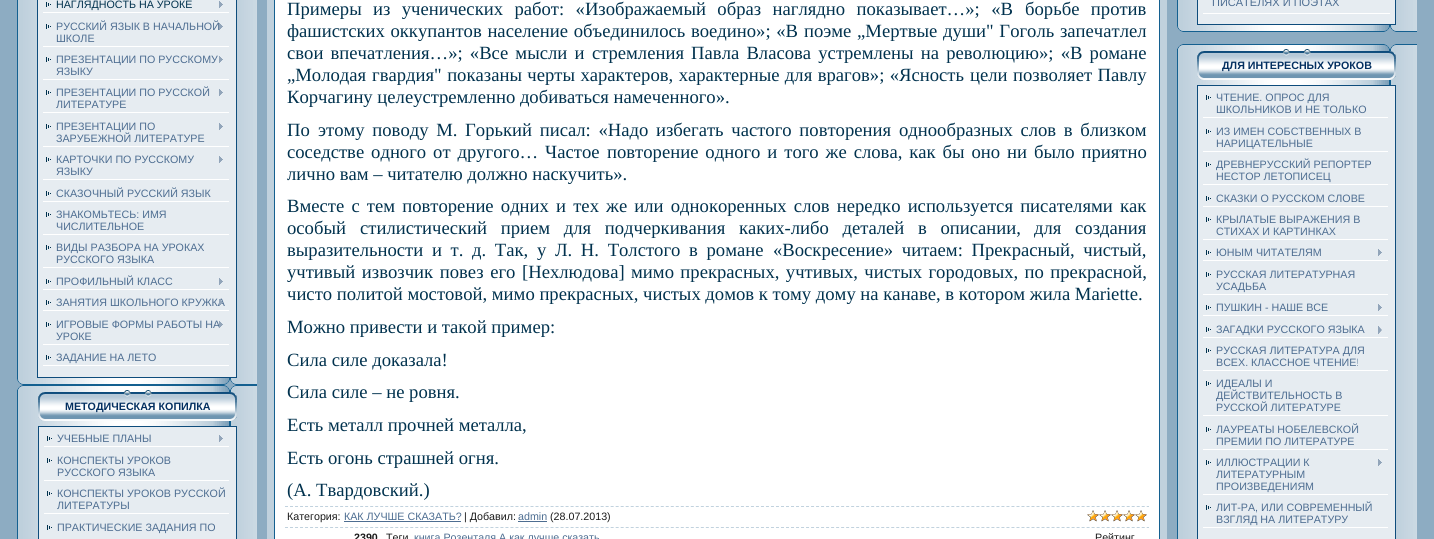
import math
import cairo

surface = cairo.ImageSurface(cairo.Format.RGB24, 1434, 539)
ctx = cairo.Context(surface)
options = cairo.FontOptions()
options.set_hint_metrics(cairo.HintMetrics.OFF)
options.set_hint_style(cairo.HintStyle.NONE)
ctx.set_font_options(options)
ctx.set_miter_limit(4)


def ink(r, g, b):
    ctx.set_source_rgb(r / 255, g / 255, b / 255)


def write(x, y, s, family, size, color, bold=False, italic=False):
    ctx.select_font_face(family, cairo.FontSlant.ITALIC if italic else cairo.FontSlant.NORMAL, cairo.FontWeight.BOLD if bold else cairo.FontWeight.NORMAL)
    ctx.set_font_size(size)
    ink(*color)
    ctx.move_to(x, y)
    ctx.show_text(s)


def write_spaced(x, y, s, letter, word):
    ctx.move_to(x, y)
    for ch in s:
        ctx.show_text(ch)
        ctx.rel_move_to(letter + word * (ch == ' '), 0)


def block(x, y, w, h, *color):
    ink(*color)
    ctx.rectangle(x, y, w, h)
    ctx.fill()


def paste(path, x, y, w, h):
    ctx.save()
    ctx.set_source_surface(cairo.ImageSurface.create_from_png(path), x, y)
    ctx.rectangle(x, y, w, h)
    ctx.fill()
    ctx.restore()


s1 = dict(family="Liberation Sans", size=10.7, color=(1, 50, 78))
s2 = dict(family="Liberation Sans", size=10.7, color=(77, 109, 145))
s3 = dict(family="Liberation Sans", size=10.7, color=(3, 47, 96), bold=True)
s4 = dict(family="Liberation Serif", size=18.65, color=(1, 50, 78))
s5 = dict(family="Liberation Sans", size=10.7, color=(26, 26, 26))
s6 = dict(family="Liberation Sans", size=10.7, color=(26, 26, 26), bold=True)
s7 = dict(family="Liberation Sans", size=11, color=(77, 109, 145))

ink(141, 172, 194)
ctx.paint()
paste("pic1.png", 17, 0, 240, 379)
ink(230, 236, 241)
ctx.rectangle(37.5, -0.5, 199, 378)
ctx.fill_preserve()
ink(14, 76, 124)
ctx.set_line_width(1)
ctx.stroke()
paste("pic2.png", 46, 2, 5, 5)
block(43, 12, 186, 1, 255, 255, 255)
write(56, 8, "НАГЛЯДНОСТЬ НА УРОКЕ", **s1)
paste("pic3.png", 219, 1, 4, 7)
paste("pic2.png", 46, 24, 5, 5)
block(43, 46, 186, 1, 255, 255, 255)
write(56, 30, "РУССКИЙ ЯЗЫК В НАЧАЛЬНОЙ", **s2)
paste("pic3.png", 219, 23, 4, 7)
write(56, 42, "ШКОЛЕ", **s2)
paste("pic2.png", 46, 57, 5, 5)
block(43, 79, 186, 1, 255, 255, 255)
write(56, 63, "ПРЕЗЕНТАЦИИ ПО РУССКОМУ", **s2)
paste("pic3.png", 219, 56, 4, 7)
write(56, 75, "ЯЗЫКУ", **s2)
paste("pic2.png", 46, 90, 5, 5)
block(43, 112, 186, 1, 255, 255, 255)
write(56, 96, "ПРЕЗЕНТАЦИИ ПО РУССКОЙ", **s2)
paste("pic3.png", 219, 89, 4, 7)
write(56, 108, "ЛИТЕРАТУРЕ", **s2)
paste("pic2.png", 46, 124, 5, 5)
block(43, 146, 186, 1, 255, 255, 255)
write(56, 130, "ПРЕЗЕНТАЦИИ ПО", **s2)
paste("pic3.png", 219, 123, 4, 7)
write(56, 142, "ЗАРУБЕЖНОЙ ЛИТЕРАТУРЕ", **s2)
paste("pic2.png", 46, 157, 5, 5)
block(43, 179, 186, 1, 255, 255, 255)
write(56, 163, "КАРТОЧКИ ПО РУССКОМУ", **s2)
paste("pic3.png", 219, 156, 4, 7)
write(56, 175, "ЯЗЫКУ", **s2)
paste("pic2.png", 46, 191, 5, 5)
block(43, 201, 186, 1, 255, 255, 255)
write(56, 197, "СКАЗОЧНЫЙ РУССКИЙ ЯЗЫК", **s2)
paste("pic2.png", 46, 212, 5, 5)
block(43, 234, 186, 1, 255, 255, 255)
write(56, 218, "ЗНАКОМЬТЕСЬ: ИМЯ", **s2)
write(56, 230, "ЧИСЛИТЕЛЬНОЕ", **s2)
paste("pic2.png", 46, 245, 5, 5)
block(43, 267, 186, 1, 255, 255, 255)
write(56, 251, "ВИДЫ РАЗБОРА НА УРОКАХ", **s2)
write(56, 263, "РУССКОГО ЯЗЫКА", **s2)
paste("pic2.png", 46, 279, 5, 5)
block(43, 289, 186, 1, 255, 255, 255)
write(56, 285, "ПРОФИЛЬНЫЙ КЛАСС", **s2)
paste("pic3.png", 219, 278, 4, 7)
paste("pic2.png", 46, 300, 5, 5)
block(43, 310, 186, 1, 255, 255, 255)
write(56, 306, "ЗАНЯТИЯ ШКОЛЬНОГО КРУЖКА", **s2)
paste("pic4.png", 219, 299, 4, 7)
paste("pic2.png", 46, 322, 5, 5)
block(43, 344, 186, 1, 255, 255, 255)
write(56, 328, "ИГРОВЫЕ ФОРМЫ РАБОТЫ НА", **s2)
paste("pic3.png", 219, 321, 4, 7)
write(56, 340, "УРОКЕ", **s2)
paste("pic2.png", 46, 355, 5, 5)
block(43, 365, 186, 1, 255, 255, 255)
write(56, 361, "ЗАДАНИЕ НА ЛЕТО", **s2)
paste("pic5.png", 17, 379, 240, 6)
paste("pic6.png", 17, 390, 240, 149)
paste("pic7.png", 17, 385, 240, 5)
paste("pic8.png", 38, 390, 199, 31)
write(65, 410, "МЕТОДИЧЕСКАЯ КОПИЛКА", **s3)
ink(230, 236, 241)
ctx.rectangle(38.5, 426.5, 198, 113)
ctx.fill_preserve()
ink(14, 76, 124)
ctx.stroke()
paste("pic2.png", 47, 436, 5, 5)
block(44, 446, 185, 1, 255, 255, 255)
write(57, 442, "УЧЕБНЫЕ ПЛАНЫ", **s2)
paste("pic3.png", 219, 435, 4, 7)
paste("pic2.png", 47, 458, 5, 5)
block(44, 480, 185, 1, 255, 255, 255)
write(57, 464, "КОНСПЕКТЫ УРОКОВ", **s2)
write(57, 476, "РУССКОГО ЯЗЫКА", **s2)
paste("pic2.png", 47, 491, 5, 5)
block(44, 513, 185, 1, 255, 255, 255)
write(57, 497, "КОНСПЕКТЫ УРОКОВ РУССКОЙ", **s2)
write(57, 509, "ЛИТЕРАТУРЫ", **s2)
paste("pic2.png", 47, 525, 5, 5)
write(57, 531, "ПРАКТИЧЕСКИЕ ЗАДАНИЯ ПО", **s2)
block(267, 0, 7, 539, 192, 209, 221)
ink(255, 255, 255)
ctx.rectangle(274.5, -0.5, 885, 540)
ctx.fill_preserve()
ink(20, 96, 144)
ctx.stroke()
write(287, 15, "Примеры", **s4)
write_spaced(373, 15, "из ученических работ: «Изображаемый образ наглядно показывает…»; «В", 0, 6.75)
write_spaced(1025, 15, "борьбе против", 0, 6.75)
write_spaced(287, 37, "фашистских оккупантов население объединилось воедино»; «В", 0, 1)
write_spaced(804, 37, "поэме „Мертвые души\" Гоголь запечатлел", 0, 1)
write_spaced(287, 59, "свои впечатления…»; «Все мысли и", 0, 2.5)
write_spaced(592, 59, "стремления Павла Власова устремлены на революцию»; «В романе", 0, 2.5)
write(287, 81, "„Молодая", **s4)
write_spaced(372, 81, "гвардия\" показаны черты характеров, характерные для врагов»; «Ясность", 0, 0.75)
write_spaced(970, 81, "цели позволяет Павлу", 0, 0.75)
write(287, 103, "Корчагину целеустремленно добиваться намеченного».", **s4)
write(287, 136, "По", **s4)
write_spaced(318, 136, "этому поводу М. Горький писал: «Надо избегать частого повторения", 0, 3)
write_spaced(899, 136, "однообразных слов в близком", 0, 3)
write_spaced(287, 158, "соседстве одного от другого… Частое", 0, 2.25)
write_spaced(607, 158, "повторение одного и того же слова, как бы оно ни было приятно", 0, 2.25)
write(287, 180, "лично вам – читателю должно наскучить».", **s4)
write_spaced(287, 212, "Вместе с тем повторение одних и тех", 0, 2.5)
write_spaced(606, 212, "же или однокоренных слов нередко используется писателями как", 0, 2.5)
write(287, 234, "особый", **s4)
write_spaced(360, 234, "стилистический прием для подчеркивания каких-либо деталей в описании,", 0, 9)
write_spaced(1034, 234, "для создания", 0, 9)
write_spaced(287, 256, "выразительности и т. д. Так, у Л. Н. Толстого в романе", 0, 4)
write_spaced(773, 256, "«Воскресение» читаем: Прекрасный, чистый,", 0, 4)
write_spaced(287, 278, "учтивый извозчик повез его", 0, 2)
write_spaced(522, 278, "[Нехлюдова] мимо прекрасных, учтивых, чистых городовых, по прекрасной,", 0, 1.75)
write(287, 300, "чисто политой мостовой, мимо прекрасных, чистых домов к тому дому на канаве, в котором жила Mariette.", **s4)
write(287, 333, "Можно привести и такой пример:", **s4)
write(287, 366, "Сила силе доказала!", **s4)
write(287, 398, "Сила силе – не ровня.", **s4)
write(287, 431, "Есть металл прочней металла,", **s4)
write(287, 464, "Есть огонь страшней огня.", **s4)
write(287, 496, "(А. Твардовский.)", **s4)
ctx.new_path()
ctx.move_to(285, 506.5)
ctx.line_to(1149, 506.5)
ink(193, 210, 222)
ctx.set_dash([3, 2.01])
ctx.stroke()
ctx.new_path()
ctx.move_to(285, 527.5)
ctx.line_to(1149, 527.5)
ctx.stroke()
write(287, 520, "Категория:", **s5)
write(344, 520, "КАК ЛУЧШЕ СКАЗАТЬ?", **s2)
block(344, 521, 117, 1, 77, 109, 145)
write(464, 520, "| Добавил:", **s5)
write(518, 520, "admin", **s2)
block(518, 521, 29, 1, 77, 109, 145)
write(550, 520, "(28.07.2013)", **s5)
paste("pic9.png", 1087, 510, 60, 12)
paste("pic10.png", 1087, 510, 60, 12)
write(354, 541, "2390", **s6)
write(386, 541, "Теги", **s5)
write(414, 541, "книга Розенталя А как лучше сказать", **s2)
write(1095, 541, "Рейтинг", **s5)
block(1160, 0, 7, 539, 192, 209, 221)
paste("pic11.png", 1177, 0, 240, 26)
ink(230, 236, 241)
ctx.rectangle(1197.5, -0.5, 198, 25)
ctx.fill_preserve()
ink(14, 76, 124)
ctx.set_dash([])
ctx.stroke()
write(1212, 6, "ПИСАТЕЛЯХ И ПОЭТАХ", **s7)
block(1203, 13, 187, 1, 255, 255, 255)
paste("pic5.png", 1177, 26, 240, 6)
paste("pic12.png", 1177, 49, 240, 490)
paste("pic7.png", 1177, 44, 240, 5)
paste("pic13.png", 1197, 49, 199, 31)
write(1222, 69, "ДЛЯ ИНТЕРЕСНЫХ УРОКОВ", **s3)
ink(230, 236, 241)
ctx.rectangle(1197.5, 85.5, 198, 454)
ctx.fill_preserve()
ink(14, 76, 124)
ctx.stroke()
paste("pic2.png", 1206, 95, 5, 5)
block(1203, 117, 185, 1, 255, 255, 255)
write(1216, 101, "ЧТЕНИЕ. ОПРОС ДЛЯ", **s2)
write(1216, 113, "ШКОЛЬНИКОВ И НЕ ТОЛЬКО", **s2)
paste("pic2.png", 1206, 129, 5, 5)
block(1203, 151, 185, 1, 255, 255, 255)
write(1216, 135, "ИЗ ИМЕН СОБСТВЕННЫХ В", **s2)
write(1216, 147, "НАРИЦАТЕЛЬНЫЕ", **s2)
paste("pic2.png", 1206, 162, 5, 5)
block(1203, 184, 185, 1, 255, 255, 255)
write(1216, 168, "ДРЕВНЕРУССКИЙ РЕПОРТЕР", **s2)
write(1216, 180, "НЕСТОР ЛЕТОПИСЕЦ", **s2)
paste("pic2.png", 1206, 196, 5, 5)
block(1203, 206, 185, 1, 255, 255, 255)
write(1216, 202, "СКАЗКИ О РУССКОМ СЛОВЕ", **s2)
paste("pic2.png", 1206, 217, 5, 5)
block(1203, 239, 185, 1, 255, 255, 255)
write(1216, 223, "КРЫЛАТЫЕ ВЫРАЖЕНИЯ В", **s2)
write(1216, 235, "СТИХАХ И КАРТИНКАХ", **s2)
paste("pic2.png", 1206, 250, 5, 5)
block(1203, 260, 185, 1, 255, 255, 255)
write(1216, 256, "ЮНЫМ ЧИТАТЕЛЯМ", **s2)
paste("pic3.png", 1378, 249, 4, 7)
paste("pic2.png", 1206, 272, 5, 5)
block(1203, 294, 185, 1, 255, 255, 255)
write(1216, 278, "РУССКАЯ ЛИТЕРАТУРНАЯ", **s2)
write(1216, 290, "УСАДЬБА", **s2)
paste("pic2.png", 1206, 305, 5, 5)
block(1203, 315, 185, 1, 255, 255, 255)
write(1216, 311, "ПУШКИН - НАШЕ ВСЕ", **s2)
paste("pic3.png", 1378, 304, 4, 7)
paste("pic2.png", 1206, 327, 5, 5)
block(1203, 337, 185, 1, 255, 255, 255)
write(1216, 333, "ЗАГАДКИ РУССКОГО ЯЗЫКА", **s2)
paste("pic14.png", 1378, 326, 4, 8)
paste("pic2.png", 1206, 348, 5, 5)
block(1203, 370, 185, 1, 255, 255, 255)
write(1216, 354, "РУССКАЯ ЛИТЕРАТУРА ДЛЯ", **s2)
write(1216, 366, "ВСЕХ. КЛАССНОЕ ЧТЕНИЕ!", **s2)
paste("pic2.png", 1206, 381, 5, 5)
block(1203, 415, 185, 1, 255, 255, 255)
write(1216, 387, "ИДЕАЛЫ И", **s2)
write(1216, 399, "ДЕЙСТВИТЕЛЬНОСТЬ В", **s2)
write(1216, 411, "РУССКОЙ ЛИТЕРАТУРЕ", **s2)
paste("pic2.png", 1206, 427, 5, 5)
block(1203, 449, 185, 1, 255, 255, 255)
write(1216, 433, "ЛАУРЕАТЫ НОБЕЛЕВСКОЙ", **s2)
write(1216, 445, "ПРЕМИИ ПО ЛИТЕРАТУРЕ", **s2)
paste("pic2.png", 1206, 460, 5, 5)
block(1203, 494, 185, 1, 255, 255, 255)
write(1216, 466, "ИЛЛЮСТРАЦИИ К", **s2)
paste("pic3.png", 1378, 459, 4, 7)
write(1216, 478, "ЛИТЕРАТУРНЫМ", **s2)
write(1216, 490, "ПРОИЗВЕДЕНИЯМ", **s2)
paste("pic2.png", 1206, 505, 5, 5)
block(1203, 527, 185, 1, 255, 255, 255)
write(1216, 511, "ЛИТ-РА, ИЛИ СОВРЕМЕННЫЙ", **s2)
write(1216, 523, "ВЗГЛЯД НА ЛИТЕРАТУРУ", **s2)
surface.write_to_png("screenshot.png")
